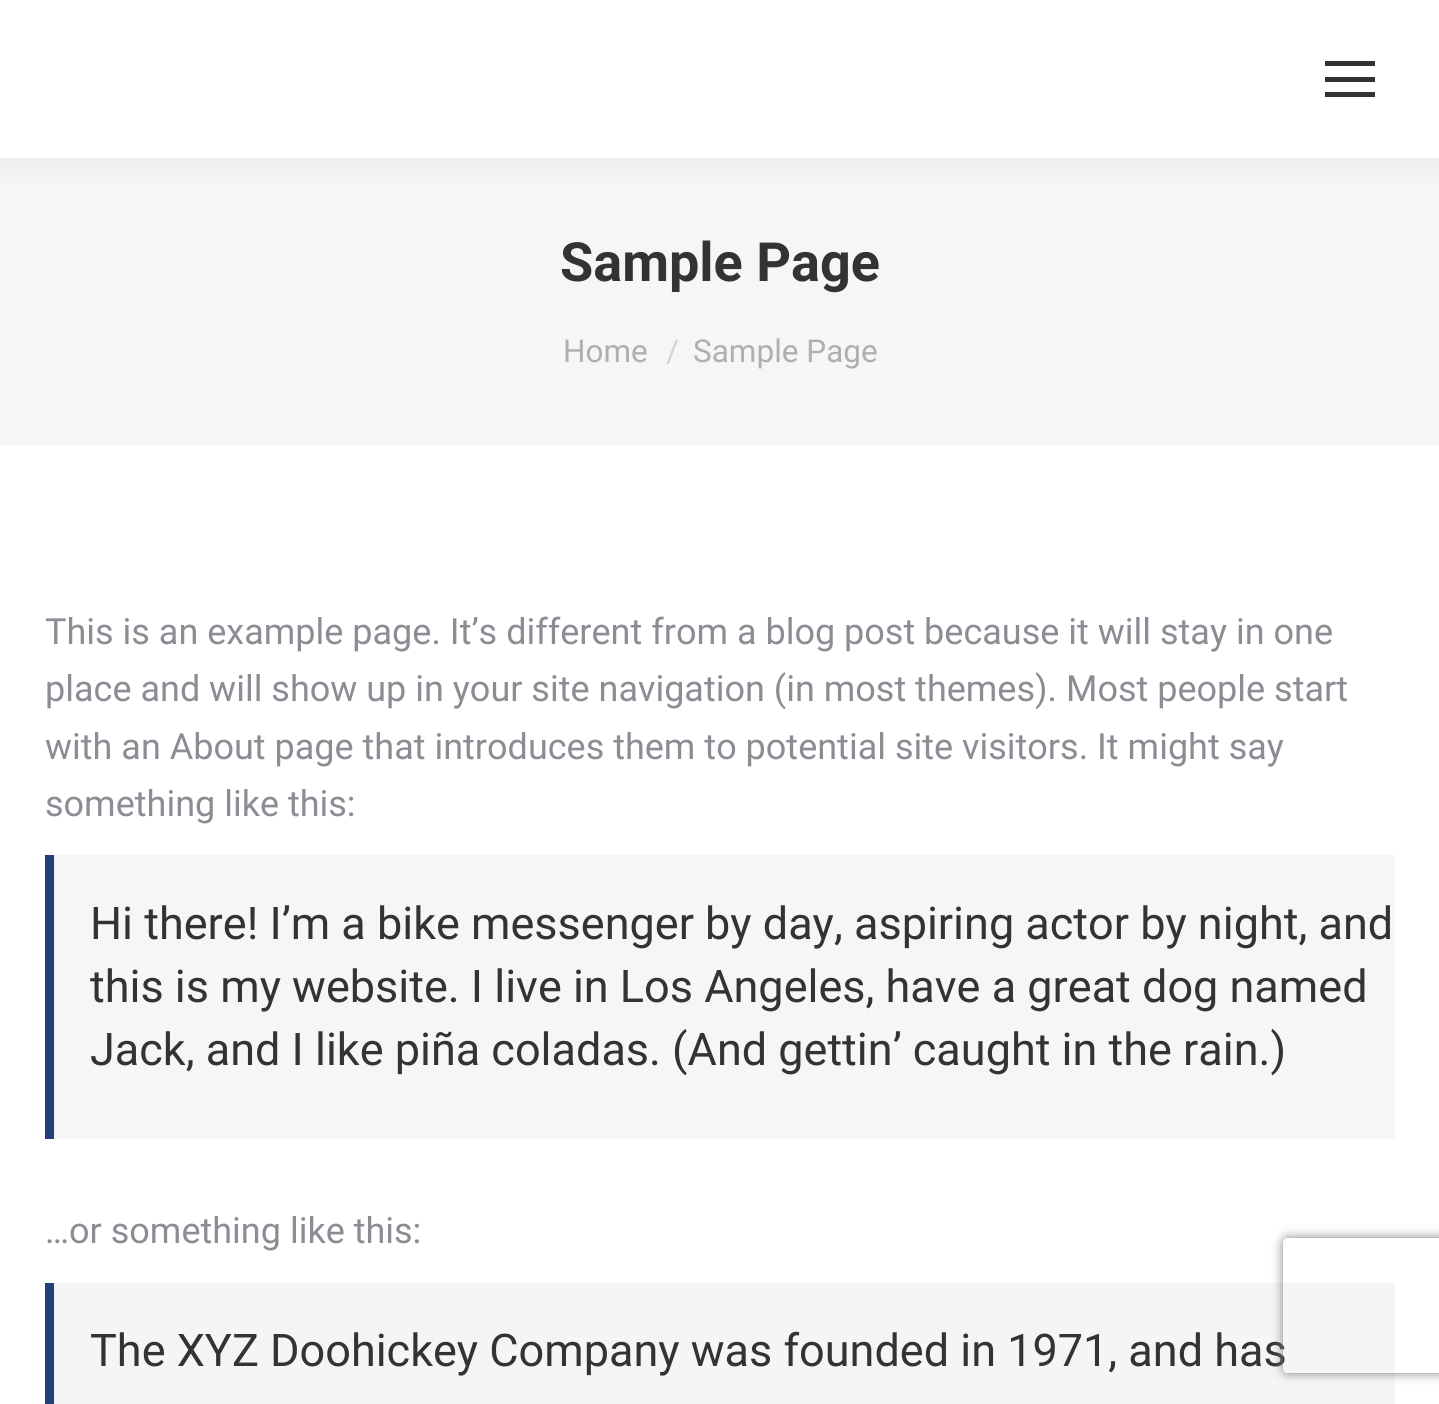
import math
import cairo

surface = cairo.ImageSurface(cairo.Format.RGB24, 1439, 1404)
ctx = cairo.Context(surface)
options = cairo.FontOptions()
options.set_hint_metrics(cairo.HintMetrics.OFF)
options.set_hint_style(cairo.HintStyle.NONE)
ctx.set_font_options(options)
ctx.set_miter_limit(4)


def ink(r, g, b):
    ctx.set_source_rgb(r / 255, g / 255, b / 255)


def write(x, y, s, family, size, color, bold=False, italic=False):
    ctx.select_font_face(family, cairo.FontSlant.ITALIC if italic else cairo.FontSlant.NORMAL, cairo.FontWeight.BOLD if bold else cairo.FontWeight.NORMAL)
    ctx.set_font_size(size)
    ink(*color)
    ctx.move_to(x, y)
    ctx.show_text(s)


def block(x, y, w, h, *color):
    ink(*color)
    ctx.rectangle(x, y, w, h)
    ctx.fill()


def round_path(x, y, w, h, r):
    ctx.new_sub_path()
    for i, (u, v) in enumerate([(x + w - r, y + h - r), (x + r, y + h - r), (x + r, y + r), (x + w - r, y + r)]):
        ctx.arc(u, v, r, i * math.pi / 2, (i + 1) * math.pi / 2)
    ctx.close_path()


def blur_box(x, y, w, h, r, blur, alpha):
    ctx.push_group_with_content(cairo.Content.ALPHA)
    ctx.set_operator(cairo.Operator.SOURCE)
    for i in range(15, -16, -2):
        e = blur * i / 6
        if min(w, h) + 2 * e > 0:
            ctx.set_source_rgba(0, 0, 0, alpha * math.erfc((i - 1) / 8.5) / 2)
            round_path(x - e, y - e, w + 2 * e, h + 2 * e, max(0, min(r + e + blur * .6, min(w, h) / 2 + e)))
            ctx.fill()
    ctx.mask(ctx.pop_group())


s1 = dict(family="Roboto", size=54, color=(51, 51, 51), bold=True)
s2 = dict(family="Roboto", size=31.5, color=(173, 175, 179))
s3 = dict(family="Roboto", size=31.5, color=(210, 211, 213))
s4 = dict(family="Roboto", size=36, color=(139, 141, 148))
s5 = dict(family="Roboto", size=45, color=(51, 51, 51))

ink(255, 255, 255)
ctx.paint()
block(0, 158, 1439, 288, 246, 246, 246)
ink(0, 0, 0)
blur_box(-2, -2, 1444, 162, 0, 17, 0.07)
block(0, 0, 1439, 158, 255, 255, 255)
block(1325, 61, 50, 5, 51, 51, 51)
block(1325, 77, 50, 5, 51, 51, 51)
block(1325, 92, 50, 5, 51, 51, 51)
write(560, 281, "Sample Page", **s1)
write(563, 362, "Home", **s2)
write(666, 362, "/", **s3)
write(693, 362, "Sample Page", **s2)
write(45, 644, "This is an example page. It’s different from a blog post because it will stay in one", **s4)
write(45, 701, "place and will show up in your site navigation (in most themes). Most people start", **s4)
write(45, 759, "with an About page that introduces them to potential site visitors. It might say", **s4)
write(45, 816, "something like this:", **s4)
block(54, 855, 1341, 284, 246, 246, 246)
block(45, 855, 9, 284, 34, 64, 118)
write(90, 939, "Hi there! I’m a bike messenger by day, aspiring actor by night, and", **s5)
write(90, 1002, "this is my website. I live in Los Angeles, have a great dog named", **s5)
write(90, 1065, "Jack, and I like piña coladas. (And gettin’ caught in the rain.)", **s5)
write(45, 1243, "…or something like this:", **s4)
block(54, 1283, 1341, 121, 245, 245, 245)
block(45, 1283, 9, 121, 34, 64, 118)
write(90, 1366, "The XYZ Doohickey Company was founded in 1971, and has", **s5)
ctx.save()
ctx.set_fill_rule(cairo.FillRule.EVEN_ODD)
ctx.new_path()
ctx.move_to(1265, 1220)
ctx.line_to(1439, 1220)
ctx.line_to(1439, 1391)
ctx.line_to(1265, 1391)
ctx.close_path()
ctx.move_to(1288, 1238)
ctx.line_to(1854, 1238)
ctx.curve_to(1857, 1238, 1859, 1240, 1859, 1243)
ctx.line_to(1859, 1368)
ctx.curve_to(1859, 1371, 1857, 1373, 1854, 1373)
ctx.line_to(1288, 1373)
ctx.curve_to(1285, 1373, 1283, 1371, 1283, 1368)
ctx.line_to(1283, 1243)
ctx.curve_to(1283, 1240, 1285, 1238, 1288, 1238)
ctx.close_path()
ctx.clip()
ink(128, 128, 128)
blur_box(1283, 1238, 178, 135, 5, 5.5, 1)
ctx.restore()
surface.write_to_png("screenshot.png")
